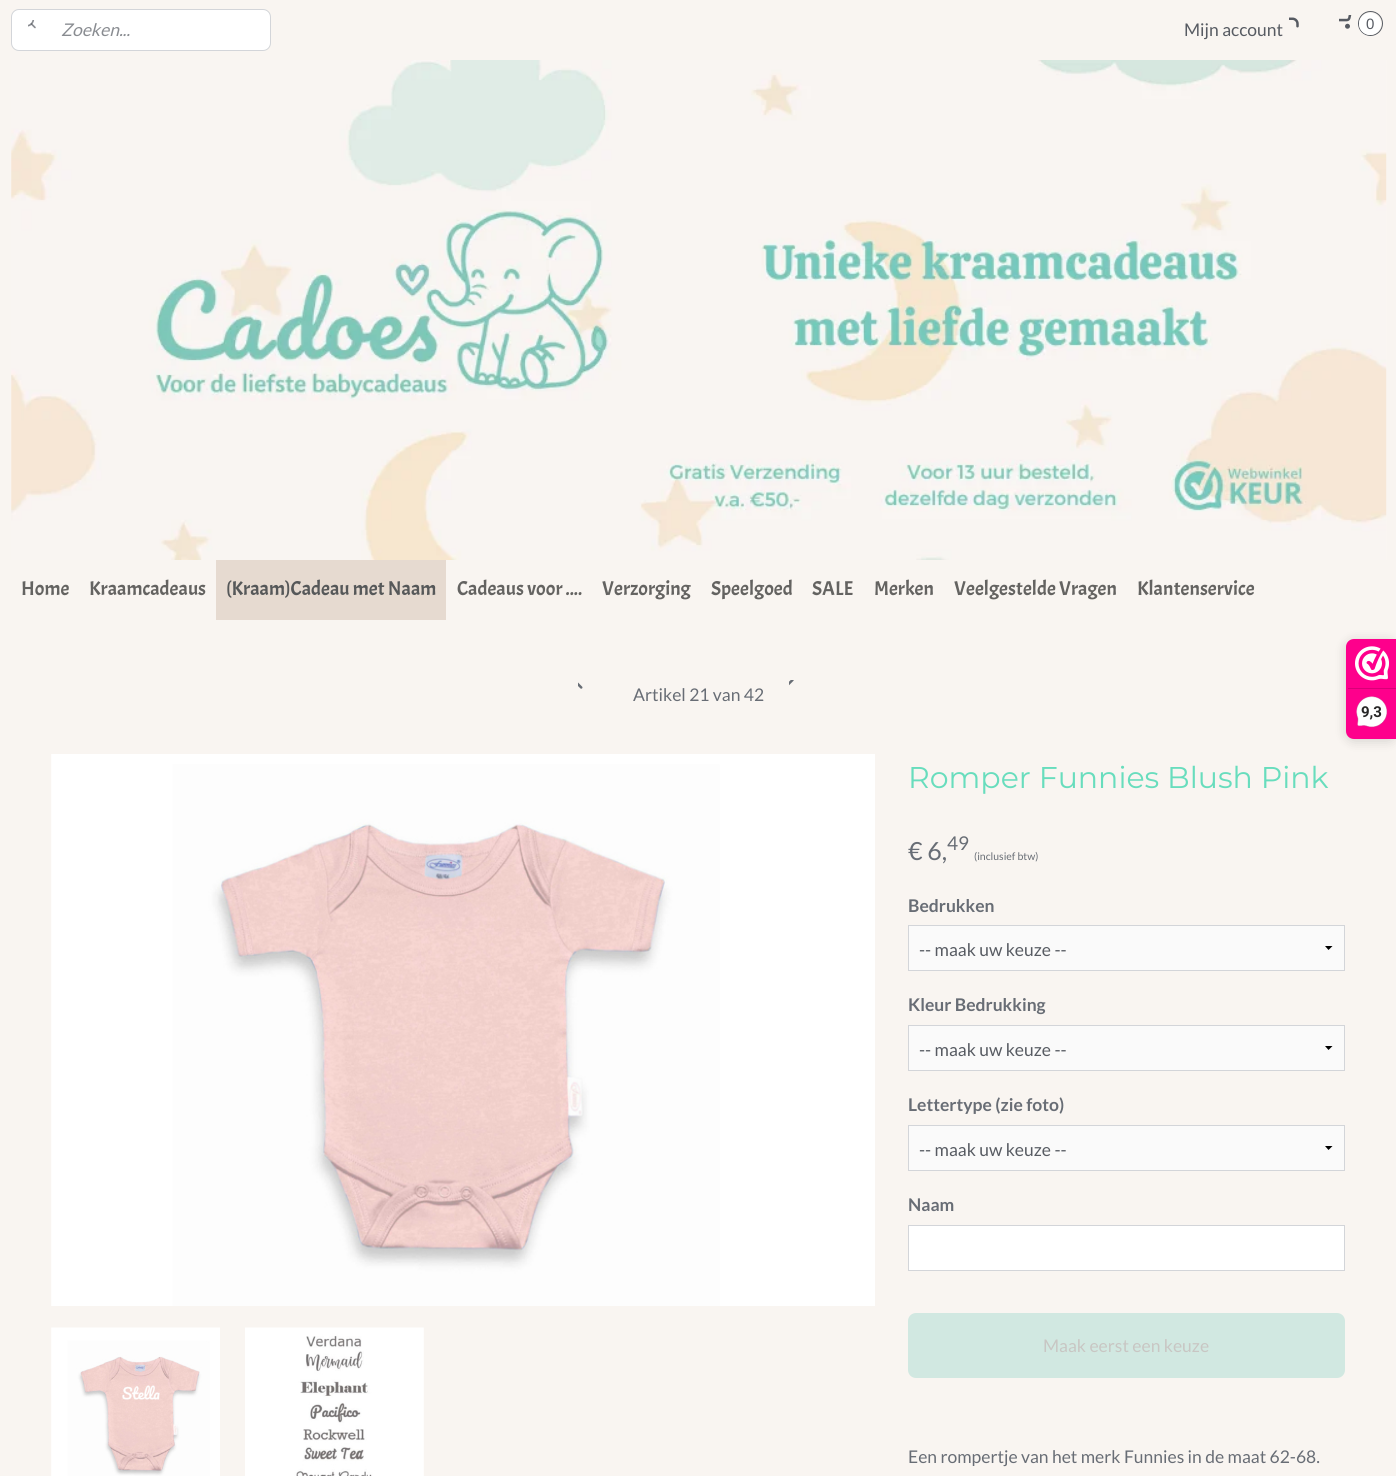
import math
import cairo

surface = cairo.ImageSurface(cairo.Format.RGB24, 1396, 1476)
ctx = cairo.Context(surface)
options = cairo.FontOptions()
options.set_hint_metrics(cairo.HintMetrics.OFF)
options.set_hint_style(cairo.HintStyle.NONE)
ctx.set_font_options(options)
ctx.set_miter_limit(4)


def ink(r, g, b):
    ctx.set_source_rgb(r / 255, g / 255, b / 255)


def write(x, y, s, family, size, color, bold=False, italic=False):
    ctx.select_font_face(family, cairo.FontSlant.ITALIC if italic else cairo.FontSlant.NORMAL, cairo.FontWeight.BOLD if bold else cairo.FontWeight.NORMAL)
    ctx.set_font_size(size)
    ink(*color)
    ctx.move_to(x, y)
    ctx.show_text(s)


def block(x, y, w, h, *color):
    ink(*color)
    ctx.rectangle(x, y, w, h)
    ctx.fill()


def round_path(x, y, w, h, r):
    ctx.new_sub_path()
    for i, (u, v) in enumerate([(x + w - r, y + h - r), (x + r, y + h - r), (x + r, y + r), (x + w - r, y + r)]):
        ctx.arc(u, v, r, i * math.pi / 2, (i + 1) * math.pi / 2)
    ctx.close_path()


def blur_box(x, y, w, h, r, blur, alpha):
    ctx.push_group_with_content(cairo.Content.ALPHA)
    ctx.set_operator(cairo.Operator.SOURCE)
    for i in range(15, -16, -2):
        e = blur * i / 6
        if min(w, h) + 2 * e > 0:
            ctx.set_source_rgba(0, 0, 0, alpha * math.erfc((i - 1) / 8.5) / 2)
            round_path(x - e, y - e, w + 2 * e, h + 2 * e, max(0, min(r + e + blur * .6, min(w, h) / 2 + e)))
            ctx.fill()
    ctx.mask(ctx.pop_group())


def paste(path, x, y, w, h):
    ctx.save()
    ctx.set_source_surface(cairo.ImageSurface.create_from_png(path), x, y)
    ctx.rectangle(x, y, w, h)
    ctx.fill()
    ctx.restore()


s1 = dict(family="Lato", size=17.5, color=(137, 140, 145), italic=True)
s2 = dict(family="Lato", size=17.5, color=(87, 91, 98))
s3 = dict(family="Liberation Sans", size=15, color=(87, 91, 98))
s4 = dict(family="Acme", size=20, color=(100, 99, 97))
s5 = dict(family="Acme", size=20, color=(86, 88, 89))
s6 = dict(family="Lato", size=17.5, color=(104, 109, 117))
s7 = dict(family="Montserrat", size=30, color=(104, 221, 189))
s8 = dict(family="Lato", size=25, color=(104, 109, 117))
s9 = dict(family="Lato", size=19, color=(104, 109, 117))
s10 = dict(family="Lato", size=10.5, color=(104, 109, 117))
s11 = dict(family="Lato", size=17.5, color=(104, 109, 117), bold=True)
s12 = dict(family="Lato", size=17.5, color=(200, 198, 195))
s13 = dict(family="Roboto", size=15, color=(39, 38, 38), bold=True)

ink(249, 245, 241)
ctx.paint()
ink(255, 255, 255)
round_path(11.5, 9.5, 259, 41, 7.5)
ctx.fill_preserve()
ink(211, 213, 217)
ctx.set_line_width(1)
ctx.stroke()
paste("pic1.png", 28, 20, 8, 9)
write(61, 36, "Zoeken...", **s1)
write(1184, 36, "Mijn account", **s2)
paste("pic2.png", 1289, 17, 10, 11)
paste("pic3.png", 1339, 15, 13, 14)
ctx.arc(1370.5, 23.5, 12, 0, 2 * math.pi)
ctx.stroke()
ink(255, 255, 255)
ctx.arc(1370, 24, 11, 0, 2 * math.pi)
ctx.fill()
write(1366, 29, "0", **s3)
paste("pic4.png", 11, 60, 1376, 500)
write(21, 595, "Home", **s4)
write(89, 595, "Kraamcadeaus", **s4)
block(216, 560, 230, 60, 230, 218, 208)
write(226, 595, "(Kraam)Cadeau met Naam", **s5)
write(457, 595, "Cadeaus voor ....", **s4)
write(602, 595, "Verzorging", **s4)
write(711, 595, "Speelgoed", **s4)
write(812, 595, "SALE", **s4)
write(874, 595, "Merken", **s4)
write(954, 595, "Veelgestelde Vragen", **s4)
write(1137, 595, "Klantenservice", **s4)
paste("pic5.png", 578, 682, 5, 7)
paste("pic6.png", 789, 680, 5, 6)
write(633, 701, "Artikel 21 van 42", **s6)
paste("pic7.png", 51, 754, 824, 552)
paste("pic8.png", 51, 1327, 169, 149)
paste("pic9.png", 245, 1327, 179, 149)
write(908, 788, "Romper Funnies Blush Pink", **s7)
write(908, 860, "€ 6,", **s8)
write(947, 850, "49", **s9)
write(974, 860, "(inclusief btw)", **s10)
write(908, 912, "Bedrukken", **s11)
block(909, 926, 435, 44, 250, 250, 250)
ink(0, 0, 0)
ctx.new_path()
ctx.move_to(1332.5, 946)
ctx.line_to(1328.5, 950)
ctx.line_to(1325, 946)
ctx.close_path()
ctx.fill()
ctx.rectangle(908.5, 925.5, 436, 45)
ink(211, 213, 217)
ctx.stroke()
write(919, 956, "-- maak uw keuze --", **s2)
write(908, 1011, "Kleur Bedrukking", **s11)
block(909, 1026, 435, 44, 250, 250, 250)
ink(0, 0, 0)
ctx.new_path()
ctx.move_to(1332.5, 1046)
ctx.line_to(1328.5, 1050)
ctx.line_to(1325, 1046)
ctx.close_path()
ctx.fill()
ctx.rectangle(908.5, 1025.5, 436, 45)
ink(211, 213, 217)
ctx.stroke()
write(919, 1056, "-- maak uw keuze --", **s2)
write(908, 1111, "Lettertype (zie foto)", **s11)
block(909, 1126, 435, 44, 250, 250, 250)
ink(0, 0, 0)
ctx.new_path()
ctx.move_to(1332.5, 1146)
ctx.line_to(1328.5, 1150)
ctx.line_to(1325, 1146)
ctx.close_path()
ctx.fill()
ctx.rectangle(908.5, 1125.5, 436, 45)
ink(211, 213, 217)
ctx.stroke()
write(919, 1156, "-- maak uw keuze --", **s2)
write(908, 1211, "Naam", **s11)
ink(255, 255, 255)
ctx.rectangle(908.5, 1225.5, 436, 45)
ctx.fill_preserve()
ink(211, 213, 217)
ctx.stroke()
ink(209, 232, 225)
round_path(908, 1313, 437, 65, 8)
ctx.fill()
write(1043, 1352, "Maak eerst een keuze", **s12)
write(908, 1463, "Een rompertje van het merk Funnies in de maat 62-68.", **s6)
ink(0, 0, 0)
blur_box(1346, 641, 50, 100, 8, 6, 0.15)
ink(254, 0, 140)
ctx.new_path()
ctx.move_to(1354, 639)
ctx.line_to(1396, 639)
ctx.line_to(1396, 739)
ctx.line_to(1354, 739)
ctx.curve_to(1349.5, 739, 1346, 735.5, 1346, 731)
ctx.line_to(1346, 647)
ctx.curve_to(1346, 642.5, 1349.5, 639, 1354, 639)
ctx.close_path()
ctx.fill()
paste("pic10.png", 1355, 646, 34, 35)
block(1348, 688, 48, 1, 216, 0, 119)
paste("pic11.png", 1356, 696, 32, 32)
write(1361, 717, "9,3", **s13)
surface.write_to_png("screenshot.png")
